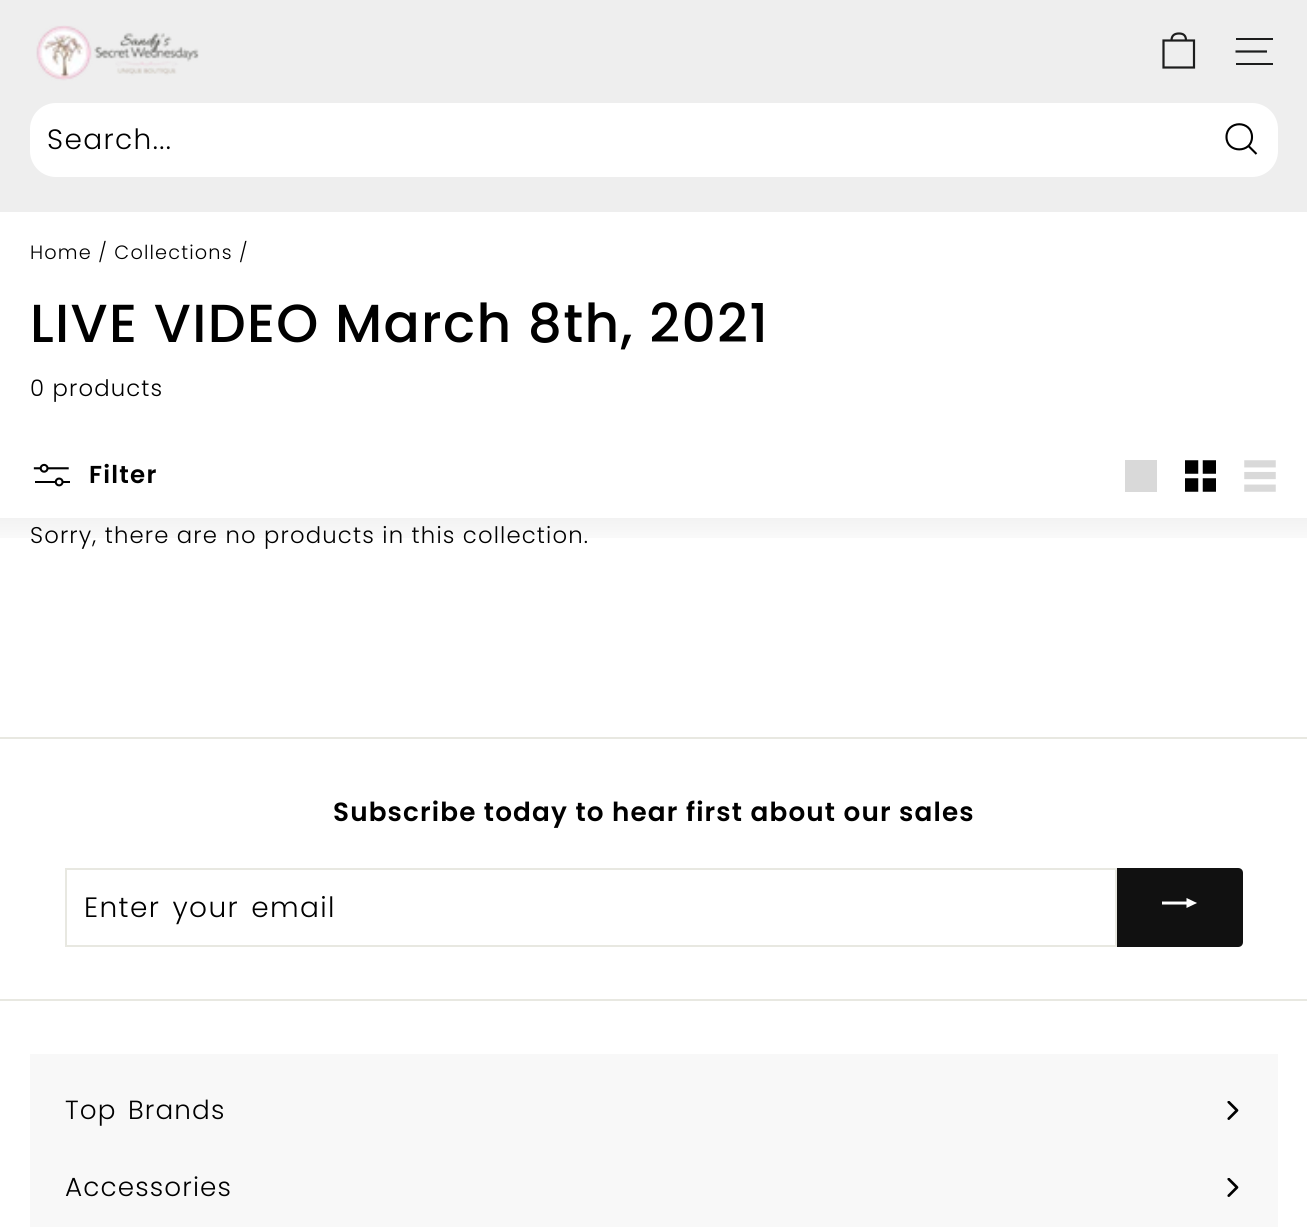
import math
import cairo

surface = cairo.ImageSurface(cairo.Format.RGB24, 1307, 1227)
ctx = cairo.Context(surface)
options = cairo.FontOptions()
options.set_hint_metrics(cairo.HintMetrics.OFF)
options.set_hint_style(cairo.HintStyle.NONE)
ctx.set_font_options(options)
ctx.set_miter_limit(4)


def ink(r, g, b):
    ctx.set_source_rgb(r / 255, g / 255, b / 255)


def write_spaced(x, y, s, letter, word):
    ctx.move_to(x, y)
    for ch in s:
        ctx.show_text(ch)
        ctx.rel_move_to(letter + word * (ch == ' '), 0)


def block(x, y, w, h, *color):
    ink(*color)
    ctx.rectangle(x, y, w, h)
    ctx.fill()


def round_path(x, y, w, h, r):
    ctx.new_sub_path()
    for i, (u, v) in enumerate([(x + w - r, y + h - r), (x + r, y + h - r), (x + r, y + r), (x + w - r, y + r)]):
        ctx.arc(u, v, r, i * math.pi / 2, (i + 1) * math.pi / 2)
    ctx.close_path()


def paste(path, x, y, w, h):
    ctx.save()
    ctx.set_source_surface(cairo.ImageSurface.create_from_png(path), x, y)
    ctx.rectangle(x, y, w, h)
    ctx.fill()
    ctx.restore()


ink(255, 255, 255)
ctx.paint()
block(0, 0, 1307, 212, 238, 238, 238)
paste("pic1.png", 36, 25, 163, 56)
ctx.new_path()
ctx.move_to(1171.5, 40.5)
ctx.curve_to(1171.5, 35, 1175, 33.5, 1179, 33.5)
ctx.curve_to(1183, 33.5, 1186, 35, 1186, 40.5)
ctx.move_to(1163.5, 40.5)
ctx.line_to(1194, 40.5)
ctx.line_to(1194, 67.5)
ctx.line_to(1163.5, 67.5)
ctx.close_path()
ink(28, 29, 29)
ctx.set_line_width(2.2)
ctx.stroke()
block(1236, 38, 37, 2, 28, 29, 29)
ctx.new_path()
ctx.move_to(1235.5, 51.5)
ctx.line_to(1267, 51.5)
ctx.stroke()
block(1236, 63, 37, 2, 28, 29, 29)
ink(255, 255, 255)
round_path(30, 103, 1248, 74, 26)
ctx.fill()
ctx.select_font_face("Poppins Light")
ctx.set_font_size(28)
ink(0, 0, 0)
write_spaced(47, 149, "Search...", 1.4, 0)
ctx.new_path()
ctx.move_to(1252, 137)
ctx.curve_to(1252, 153.5, 1226.5, 153.5, 1226.5, 137)
ctx.curve_to(1226.5, 120, 1252, 120, 1252, 137)
ctx.close_path()
ctx.move_to(1256.5, 154)
ctx.line_to(1248.5, 146)
ctx.set_line_width(2.1)
ctx.stroke()
ctx.set_font_size(19.3)
write_spaced(30, 259, "Home / Collections /", 1.15, 0)
ctx.select_font_face("Poppins Medium")
ctx.set_font_size(53.5)
write_spaced(30, 342, "LIVE VIDEO March 8th, 2021", 1.35, 0)
ctx.select_font_face("Poppins Light")
ctx.set_font_size(22.75)
write_spaced(30, 396, "0 products", 1.15, 0)
paste("pic2.png", 33, 463, 37, 24)
ctx.select_font_face("Poppins SemiBold")
ctx.set_font_size(24.5)
write_spaced(89, 483, "Filter", 1.25, 0)
block(1125, 460, 32, 32, 217, 217, 217)
paste("pic3.png", 1185, 460, 31, 32)
paste("pic4.png", 1244, 460, 32, 32)
gradient = cairo.LinearGradient(654, 518, 654, 553)
gradient.add_color_stop_rgba(0, 0, 0, 0, 0.05)
gradient.add_color_stop_rgba(1, 0, 0, 0, 0)
ctx.set_source(gradient)
ctx.rectangle(0, 518, 1307, 20)
ctx.fill()
ctx.select_font_face("Poppins Light")
ctx.set_font_size(22.75)
ink(0, 0, 0)
write_spaced(30, 543, "Sorry, there are no products in this collection.", 1.15, 0)
block(0, 737, 1307, 2, 232, 232, 225)
ctx.select_font_face("Poppins SemiBold")
ctx.set_font_size(26.25)
ink(0, 0, 0)
write_spaced(333, 821, "Subscribe today to hear first about our sales", 1.15, 0)
ctx.rectangle(66, 869, 1050, 77)
ink(232, 232, 225)
ctx.set_line_width(2)
ctx.stroke()
ctx.select_font_face("Poppins Light")
ctx.set_font_size(28)
ink(0, 0, 0)
write_spaced(84, 917, "Enter your email", 1.4, 3)
ink(17, 17, 17)
ctx.new_path()
ctx.move_to(1117, 868)
ctx.line_to(1238, 868)
ctx.curve_to(1241, 868, 1243, 870, 1243, 873)
ctx.line_to(1243, 942)
ctx.curve_to(1243, 945, 1241, 947, 1238, 947)
ctx.line_to(1117, 947)
ctx.close_path()
ctx.fill()
ink(255, 255, 255)
ctx.new_path()
ctx.move_to(1162, 904.5)
ctx.line_to(1162, 901.5)
ctx.line_to(1186.5, 901.5)
ctx.line_to(1186.5, 898)
ctx.line_to(1197, 903)
ctx.line_to(1186.5, 908)
ctx.line_to(1186.5, 904.5)
ctx.close_path()
ctx.fill()
block(0, 999, 1307, 2, 232, 232, 225)
paste("pic5.png", 1227, 1101, 12, 19)
paste("pic5.png", 1227, 1178, 12, 19)
ctx.set_source_rgba(0, 0, 0, 0.03)
ctx.rectangle(30, 1054, 1248, 173)
ctx.fill()
ctx.set_font_size(26.25)
ink(0, 0, 0)
write_spaced(65, 1119, "Top Brands", 1.15, 3)
write_spaced(65, 1196, "Accessories", 1.15, 0)
surface.write_to_png("screenshot.png")
